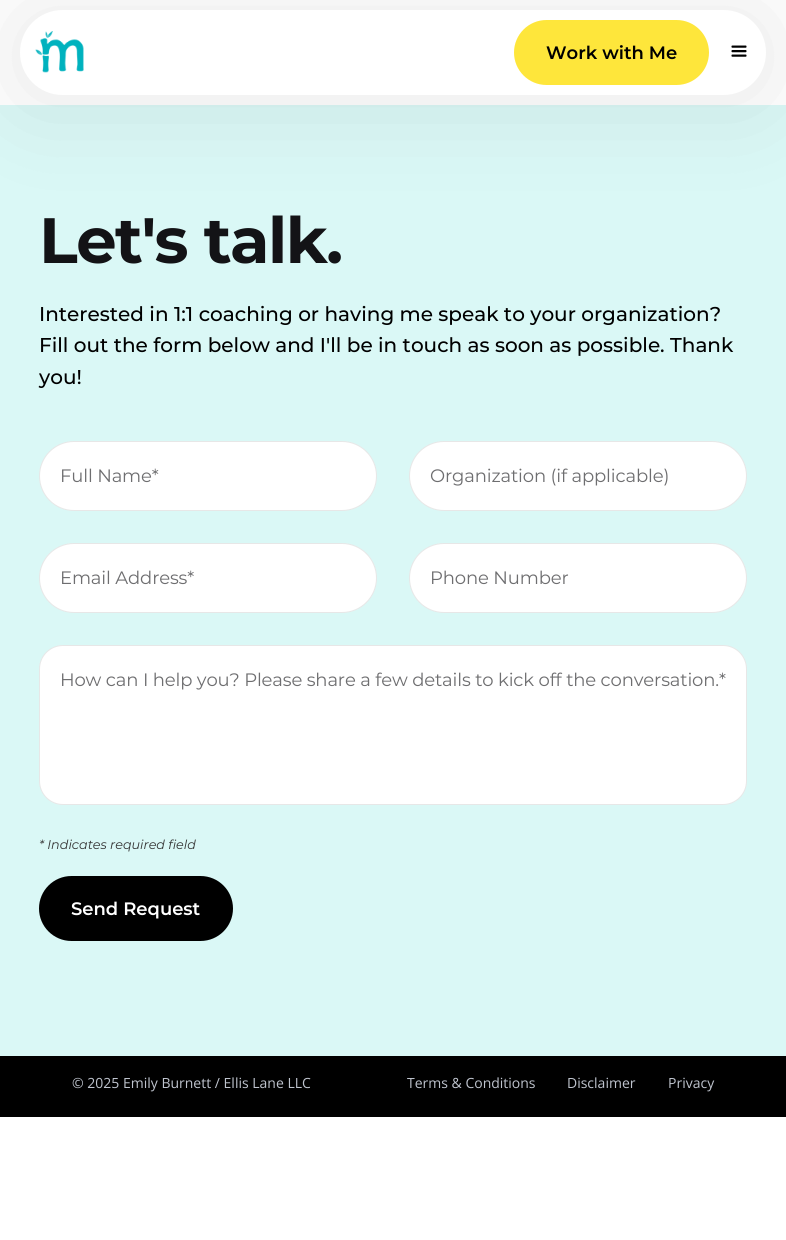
import math
import cairo

surface = cairo.ImageSurface(cairo.Format.RGB24, 786, 1240)
ctx = cairo.Context(surface)
options = cairo.FontOptions()
options.set_hint_metrics(cairo.HintMetrics.OFF)
options.set_hint_style(cairo.HintStyle.NONE)
ctx.set_font_options(options)
ctx.set_miter_limit(4)


def ink(r, g, b):
    ctx.set_source_rgb(r / 255, g / 255, b / 255)


def write(x, y, s, family, size, color, bold=False, italic=False):
    ctx.select_font_face(family, cairo.FontSlant.ITALIC if italic else cairo.FontSlant.NORMAL, cairo.FontWeight.BOLD if bold else cairo.FontWeight.NORMAL)
    ctx.set_font_size(size)
    ink(*color)
    ctx.move_to(x, y)
    ctx.show_text(s)


def write_spaced(x, y, s, letter, word):
    ctx.move_to(x, y)
    for ch in s:
        ctx.show_text(ch)
        ctx.rel_move_to(letter + word * (ch == ' '), 0)


def block(x, y, w, h, *color):
    ink(*color)
    ctx.rectangle(x, y, w, h)
    ctx.fill()


def round_path(x, y, w, h, r):
    ctx.new_sub_path()
    for i, (u, v) in enumerate([(x + w - r, y + h - r), (x + r, y + h - r), (x + r, y + r), (x + w - r, y + r)]):
        ctx.arc(u, v, r, i * math.pi / 2, (i + 1) * math.pi / 2)
    ctx.close_path()


def blur_box(x, y, w, h, r, blur, alpha):
    ctx.push_group_with_content(cairo.Content.ALPHA)
    ctx.set_operator(cairo.Operator.SOURCE)
    for i in range(15, -16, -2):
        e = blur * i / 6
        if min(w, h) + 2 * e > 0:
            ctx.set_source_rgba(0, 0, 0, alpha * math.erfc((i - 1) / 8.5) / 2)
            round_path(x - e, y - e, w + 2 * e, h + 2 * e, max(0, min(r + e + blur * .6, min(w, h) / 2 + e)))
            ctx.fill()
    ctx.mask(ctx.pop_group())


def paste(path, x, y, w, h):
    ctx.save()
    ctx.set_source_surface(cairo.ImageSurface.create_from_png(path), x, y)
    ctx.rectangle(x, y, w, h)
    ctx.fill()
    ctx.restore()


s1 = dict(family="Montserrat SemiBold", size=18, color=(0, 0, 0))
s2 = dict(family="Montserrat Medium", size=20, color=(0, 0, 0))
s3 = dict(family="Montserrat", size=12.75, color=(51, 51, 51), italic=True)
s4 = dict(family="Montserrat SemiBold", size=18, color=(255, 255, 255))
s5 = dict(family="Open Sans", size=14, color=(191, 196, 206))

ink(255, 255, 255)
ctx.paint()
block(0, 105, 786, 951, 218, 248, 246)
ink(0, 0, 0)
blur_box(20, 14, 746, 85, 42.5, 50, 0.1)
ink(255, 255, 255)
round_path(20, 10, 746, 85, 42.5)
ctx.fill()
paste("pic1.png", 35, 31, 49, 42)
ink(254, 230, 59)
round_path(514, 20, 195, 65, 32.5)
ctx.fill()
write(546, 59, "Work with Me", **s1)
paste("pic2.png", 731, 45, 16, 12)
ctx.select_font_face("Montserrat", cairo.FontSlant.NORMAL, cairo.FontWeight.BOLD)
ctx.set_font_size(64)
ink(19, 19, 22)
write_spaced(39, 263, "Let's talk.", -1.5, 0)
write(39, 321, "Interested in 1:1 coaching or having me speak to your organization?", **s2)
write(39, 352, "Fill out the form below and I'll be in touch as soon as possible. Thank", **s2)
write(39, 384, "you!", **s2)
ink(255, 255, 255)
round_path(39, 441, 338, 70, 35)
ctx.fill()
round_path(39.5, 441.5, 337, 69, 34.5)
ctx.set_source_rgba(0.051, 0.055, 0.063, 0.1)
ctx.set_line_width(1)
ctx.stroke()
ctx.select_font_face("Montserrat")
ctx.set_font_size(18)
ink(110, 110, 112)
write_spaced(60, 482, "Full Name*", -0.15, 0)
ink(255, 255, 255)
round_path(409, 441, 338, 70, 35)
ctx.fill()
round_path(409.5, 441.5, 337, 69, 34.5)
ctx.set_source_rgba(0.051, 0.055, 0.063, 0.1)
ctx.stroke()
ink(110, 110, 112)
write_spaced(430, 482, "Organization (if applicable)", -0.15, 0)
ink(255, 255, 255)
round_path(39, 543, 338, 70, 35)
ctx.fill()
round_path(39.5, 543.5, 337, 69, 34.5)
ctx.set_source_rgba(0.051, 0.055, 0.063, 0.1)
ctx.stroke()
ink(110, 110, 112)
write_spaced(60, 584, "Email Address*", -0.15, 0)
ink(255, 255, 255)
round_path(409, 543, 338, 70, 35)
ctx.fill()
round_path(409.5, 543.5, 337, 69, 34.5)
ctx.set_source_rgba(0.051, 0.055, 0.063, 0.1)
ctx.stroke()
ink(110, 110, 112)
write_spaced(430, 584, "Phone Number", -0.15, 0)
ink(255, 255, 255)
round_path(39, 645, 708, 160, 24)
ctx.fill()
round_path(39.5, 645.5, 707, 159, 23.5)
ctx.set_source_rgba(0.051, 0.055, 0.063, 0.1)
ctx.stroke()
ink(110, 110, 112)
write_spaced(60, 686, "How can I help you? Please share a few details to kick off the conversation.*", -0.15, 0)
write(39, 849, "* Indicates required field", **s3)
ink(0, 0, 0)
round_path(39, 876, 194, 65, 32.5)
ctx.fill()
write(71, 915, "Send Request", **s4)
block(0, 1056, 786, 61, 0, 0, 0)
write(72, 1088, "© 2025 Emily Burnett / Ellis Lane LLC", **s5)
write(407, 1088, "Terms & Conditions", **s5)
write(567, 1088, "Disclaimer", **s5)
write(668, 1088, "Privacy", **s5)
surface.write_to_png("screenshot.png")
